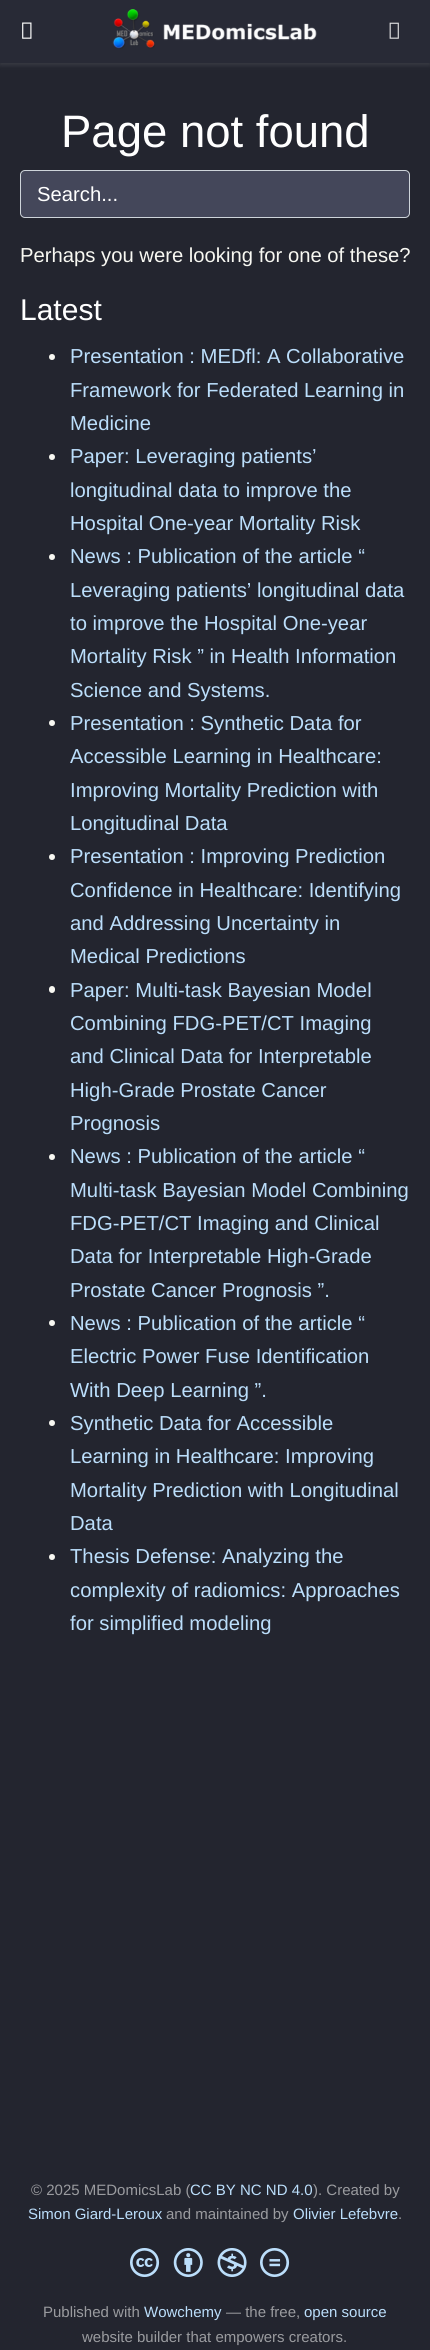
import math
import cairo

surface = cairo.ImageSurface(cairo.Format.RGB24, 430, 2350)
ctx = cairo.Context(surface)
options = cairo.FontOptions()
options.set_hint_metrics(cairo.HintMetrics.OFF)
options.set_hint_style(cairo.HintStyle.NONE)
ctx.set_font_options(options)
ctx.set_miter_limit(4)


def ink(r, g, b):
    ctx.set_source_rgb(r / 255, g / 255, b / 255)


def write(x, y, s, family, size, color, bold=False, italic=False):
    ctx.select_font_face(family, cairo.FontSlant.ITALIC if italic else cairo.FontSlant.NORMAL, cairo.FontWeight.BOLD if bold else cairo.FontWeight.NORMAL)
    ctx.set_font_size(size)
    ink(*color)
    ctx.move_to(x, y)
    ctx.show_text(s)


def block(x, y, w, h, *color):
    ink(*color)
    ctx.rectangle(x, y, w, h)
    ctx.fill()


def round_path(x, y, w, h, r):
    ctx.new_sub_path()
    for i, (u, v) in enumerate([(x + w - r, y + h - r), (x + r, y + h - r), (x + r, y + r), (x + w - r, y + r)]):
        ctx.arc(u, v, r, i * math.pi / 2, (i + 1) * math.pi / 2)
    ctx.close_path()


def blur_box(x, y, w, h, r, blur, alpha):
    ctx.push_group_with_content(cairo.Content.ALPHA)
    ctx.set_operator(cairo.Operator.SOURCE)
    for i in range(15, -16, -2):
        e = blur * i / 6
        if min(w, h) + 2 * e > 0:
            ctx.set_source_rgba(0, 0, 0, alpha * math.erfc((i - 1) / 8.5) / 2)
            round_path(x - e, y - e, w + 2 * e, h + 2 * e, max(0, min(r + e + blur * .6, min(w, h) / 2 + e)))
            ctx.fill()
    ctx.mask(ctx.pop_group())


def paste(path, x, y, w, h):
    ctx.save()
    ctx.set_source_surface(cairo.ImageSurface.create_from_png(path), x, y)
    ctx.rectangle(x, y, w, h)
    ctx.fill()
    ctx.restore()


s1 = dict(family="Liberation Sans", size=45.5, color=(255, 255, 255))
s2 = dict(family="Liberation Sans", size=20.25, color=(255, 255, 255))
s3 = dict(family="Liberation Sans", size=20.25, color=(248, 248, 242))
s4 = dict(family="Liberation Sans", size=30, color=(255, 255, 255))
s5 = dict(family="Liberation Sans", size=20.25, color=(187, 222, 251))
s6 = dict(family="Liberation Sans", size=15, color=(154, 155, 159))
s7 = dict(family="Liberation Sans", size=15, color=(187, 222, 251))

ink(35, 37, 47)
ctx.paint()
ink(255, 255, 255)
blur_box(0, 3, 430, 62, 0, 2.5, 0.11)
block(0, 0, 430, 63, 40, 42, 54)
paste("pic1.png", 22, 22, 10, 17)
paste("pic2.png", 112, 9, 205, 40)
paste("pic3.png", 389, 22, 10, 17)
write(61, 147, "Page not found", **s1)
ink(68, 71, 90)
round_path(20.5, 170.5, 389, 47, 4.5)
ctx.fill_preserve()
ink(206, 212, 218)
ctx.set_line_width(1)
ctx.stroke()
write(37, 201, "Search...", **s2)
write(20, 262, "Perhaps you were looking for one of these?", **s3)
write(20, 320, "Latest", **s4)
ink(248, 248, 242)
ctx.new_path()
ctx.arc(52, 357, 3, 0, 2 * math.pi)
ctx.fill()
write(70, 363, "Presentation : MEDfl: A Collaborative", **s5)
write(70, 397, "Framework for Federated Learning in", **s5)
write(70, 430, "Medicine", **s5)
ink(248, 248, 242)
ctx.new_path()
ctx.arc(52, 457, 3, 0, 2 * math.pi)
ctx.fill()
write(70, 463, "Paper: Leveraging patients’", **s5)
write(70, 497, "longitudinal data to improve the", **s5)
write(70, 530, "Hospital One-year Mortality Risk", **s5)
ink(248, 248, 242)
ctx.new_path()
ctx.arc(52, 557, 3, 0, 2 * math.pi)
ctx.fill()
write(70, 563, "News : Publication of the article “", **s5)
write(70, 597, "Leveraging patients’ longitudinal data", **s5)
write(70, 630, "to improve the Hospital One-year", **s5)
write(70, 663, "Mortality Risk ” in Health Information", **s5)
write(70, 697, "Science and Systems.", **s5)
ink(248, 248, 242)
ctx.new_path()
ctx.arc(52, 723, 3, 0, 2 * math.pi)
ctx.fill()
write(70, 730, "Presentation : Synthetic Data for", **s5)
write(70, 763, "Accessible Learning in Healthcare:", **s5)
write(70, 797, "Improving Mortality Prediction with", **s5)
write(70, 830, "Longitudinal Data", **s5)
ink(248, 248, 242)
ctx.new_path()
ctx.arc(52, 857, 3, 0, 2 * math.pi)
ctx.fill()
write(70, 863, "Presentation : Improving Prediction", **s5)
write(70, 897, "Confidence in Healthcare: Identifying", **s5)
write(70, 930, "and Addressing Uncertainty in", **s5)
write(70, 963, "Medical Predictions", **s5)
ink(248, 248, 242)
round_path(49, 986, 6, 7, 3)
ctx.fill()
write(70, 997, "Paper: Multi-task Bayesian Model", **s5)
write(70, 1030, "Combining FDG-PET/CT Imaging", **s5)
write(70, 1063, "and Clinical Data for Interpretable", **s5)
write(70, 1097, "High-Grade Prostate Cancer", **s5)
write(70, 1130, "Prognosis", **s5)
ink(248, 248, 242)
ctx.new_path()
ctx.arc(52, 1157, 3, 0, 2 * math.pi)
ctx.fill()
write(70, 1163, "News : Publication of the article “", **s5)
write(70, 1197, "Multi-task Bayesian Model Combining", **s5)
write(70, 1230, "FDG-PET/CT Imaging and Clinical", **s5)
write(70, 1263, "Data for Interpretable High-Grade", **s5)
write(70, 1297, "Prostate Cancer Prognosis ”.", **s5)
ink(248, 248, 242)
ctx.new_path()
ctx.arc(52, 1323, 3, 0, 2 * math.pi)
ctx.fill()
write(70, 1330, "News : Publication of the article “", **s5)
write(70, 1363, "Electric Power Fuse Identification", **s5)
write(70, 1397, "With Deep Learning ”.", **s5)
ink(248, 248, 242)
ctx.new_path()
ctx.arc(52, 1423, 3, 0, 2 * math.pi)
ctx.fill()
write(70, 1430, "Synthetic Data for Accessible", **s5)
write(70, 1463, "Learning in Healthcare: Improving", **s5)
write(70, 1497, "Mortality Prediction with Longitudinal", **s5)
write(70, 1530, "Data", **s5)
ink(248, 248, 242)
ctx.new_path()
ctx.arc(52, 1557, 3, 0, 2 * math.pi)
ctx.fill()
write(70, 1563, "Thesis Defense: Analyzing the", **s5)
write(70, 1597, "complexity of radiomics: Approaches", **s5)
write(70, 1630, "for simplified modeling", **s5)
write(31, 2195, "© 2025 MEDomicsLab (", **s6)
write(190, 2195, "CC BY NC ND 4.0", **s7)
write(313, 2195, "). Created by", **s6)
write(28, 2219, "Simon Giard-Leroux", **s7)
write(166, 2219, "and maintained by", **s6)
write(293, 2219, "Olivier Lefebvre", **s7)
write(398, 2219, ".", **s6)
paste("pic4.png", 130, 2248, 30, 29)
paste("pic5.png", 173, 2248, 30, 29)
paste("pic6.png", 217, 2248, 30, 29)
paste("pic7.png", 260, 2248, 30, 29)
write(43, 2317, "Published with", **s6)
write(144, 2317, "Wowchemy", **s7)
write(226, 2317, "— the free,", **s6)
write(304, 2317, "open source", **s7)
write(82, 2342, "website builder that empowers creators.", **s6)
surface.write_to_png("screenshot.png")
